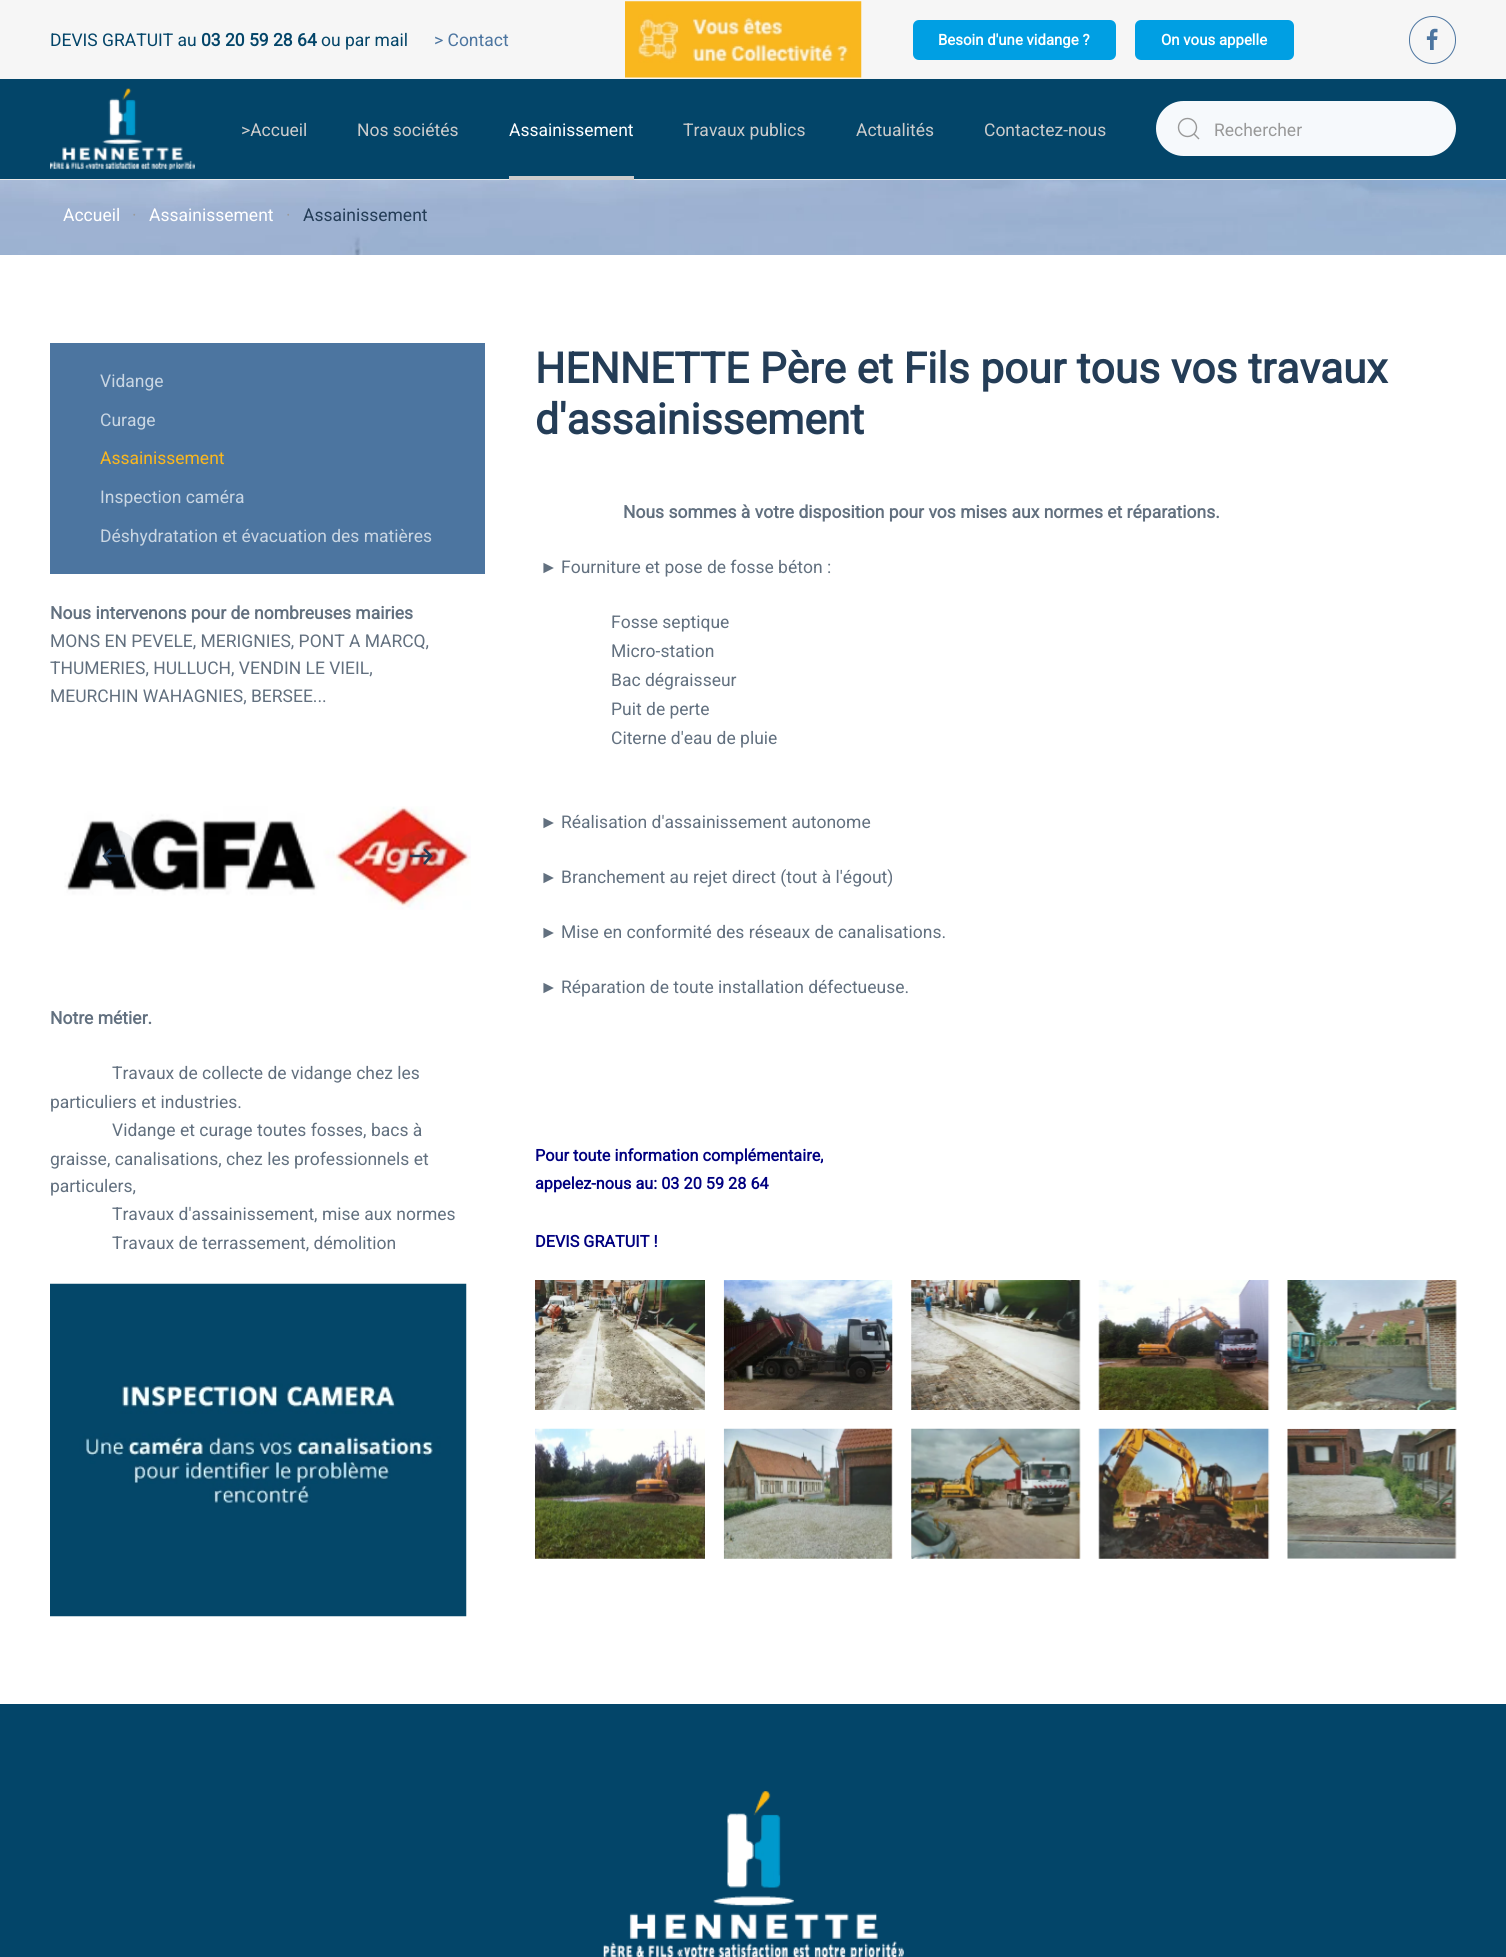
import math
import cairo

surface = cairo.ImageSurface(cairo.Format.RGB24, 1506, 1957)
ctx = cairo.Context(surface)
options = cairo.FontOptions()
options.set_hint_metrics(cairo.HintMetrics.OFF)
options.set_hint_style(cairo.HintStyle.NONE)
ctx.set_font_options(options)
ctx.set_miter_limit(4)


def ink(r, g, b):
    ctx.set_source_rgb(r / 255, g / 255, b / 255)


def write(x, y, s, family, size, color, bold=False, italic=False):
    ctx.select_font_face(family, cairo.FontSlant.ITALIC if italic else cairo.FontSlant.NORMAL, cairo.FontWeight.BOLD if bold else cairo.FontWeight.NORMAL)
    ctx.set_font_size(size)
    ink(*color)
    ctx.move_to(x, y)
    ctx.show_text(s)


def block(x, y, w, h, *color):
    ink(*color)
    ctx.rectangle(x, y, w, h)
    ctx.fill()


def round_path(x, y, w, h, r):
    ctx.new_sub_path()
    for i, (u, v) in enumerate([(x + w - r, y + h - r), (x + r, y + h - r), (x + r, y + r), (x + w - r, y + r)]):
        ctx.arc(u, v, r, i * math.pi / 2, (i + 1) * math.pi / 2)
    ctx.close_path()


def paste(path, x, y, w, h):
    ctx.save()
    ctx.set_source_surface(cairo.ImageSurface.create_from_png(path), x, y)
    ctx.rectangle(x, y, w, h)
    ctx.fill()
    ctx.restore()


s1 = dict(family="Roboto", size=17.5, color=(3, 69, 105))
s2 = dict(family="Roboto", size=17.5, color=(3, 69, 105), bold=True)
s3 = dict(family="Roboto", size=17.5, color=(76, 117, 160))
s4 = dict(family="Roboto", size=15, color=(255, 255, 255), bold=True)
s5 = dict(family="Roboto", size=17.5, color=(204, 204, 204))
s6 = dict(family="Roboto", size=17.5, color=(255, 255, 255))
s7 = dict(family="Roboto", size=17.5, color=(153, 153, 153))
s8 = dict(family="Roboto", size=17.5, color=(36, 61, 87))
s9 = dict(family="Roboto", size=17.5, color=(201, 214, 227))
s10 = dict(family="Roboto", size=17.5, color=(250, 183, 30))
s11 = dict(family="Roboto", size=17.5, color=(98, 112, 127), bold=True)
s12 = dict(family="Roboto", size=17.5, color=(98, 112, 127))
s13 = dict(family="Roboto", size=42.5, color=(36, 61, 87), bold=True)
s14 = dict(family="Liberation Serif", size=17.5, color=(98, 112, 127))
s15 = dict(family="Roboto", size=16.25, color=(0, 0, 128), bold=True)

ink(255, 255, 255)
ctx.paint()
block(0, 0, 1506, 79, 246, 246, 246)
write(50, 46, "DEVIS GRATUIT au", **s1)
write(201, 46, "03 20 59 28 64", **s2)
write(321, 46, "ou par mail", **s1)
write(434, 46, "> Contact", **s3)
paste("pic1.png", 625, 1, 237, 77)
ink(0, 159, 227)
round_path(913, 20, 203, 40, 6)
ctx.fill()
write(938, 45, "Besoin d'une vidange ?", **s4)
ink(0, 159, 227)
round_path(1135, 20, 159, 40, 6)
ctx.fill()
write(1161, 45, "On vous appelle", **s4)
round_path(1409.5, 16.5, 46, 47, 23)
ink(76, 117, 160)
ctx.set_line_width(1)
ctx.stroke()
paste("pic2.png", 1426, 28, 12, 22)
block(0, 79, 1506, 100, 3, 69, 105)
block(0, 179, 1506, 1, 232, 232, 232)
paste("pic3.png", 50, 88, 145, 82)
write(241, 136, ">Accueil", **s5)
write(357, 136, "Nos sociétés", **s5)
write(509, 136, "Assainissement", **s6)
block(509, 176, 125, 4, 204, 204, 204)
write(683, 136, "Travaux publics", **s5)
write(856, 136, "Actualités", **s5)
write(984, 136, "Contactez-nous", **s5)
ink(246, 249, 252)
round_path(1156, 101, 300, 55, 27.5)
ctx.fill()
ctx.arc(1187.5, 127.5, 9, 0, 2 * math.pi)
ink(153, 153, 153)
ctx.set_line_width(1.4)
ctx.stroke()
ctx.new_path()
ctx.move_to(1194, 134)
ctx.line_to(1199, 139)
ctx.close_path()
ctx.stroke()
write(1214, 136, "Rechercher", **s7)
paste("pic4.png", 0, 180, 1506, 75)
write(63, 221, "Accueil", **s6)
write(132, 221, "·", **s7)
write(149, 221, "Assainissement", **s6)
write(286, 221, "·", **s7)
write(303, 221, "Assainissement", **s8)
block(50, 343, 435, 231, 76, 117, 160)
write(100, 387, "Vidange", **s9)
write(100, 426, "Curage", **s9)
write(100, 464, "Assainissement", **s10)
write(100, 503, "Inspection caméra", **s9)
write(100, 542, "Déshydratation et évacuation des matières", **s9)
write(50, 619, "Nous intervenons pour de nombreuses mairies", **s11)
write(50, 647, "MONS EN PEVELE, MERIGNIES, PONT A MARCQ,", **s12)
write(50, 674, "THUMERIES, HULLUCH, VENDIN LE VIEIL,", **s12)
write(50, 702, "MEURCHIN WAHAGNIES, BERSEE...", **s12)
paste("pic5.png", 64, 806, 407, 104)
ctx.set_source_rgba(0.141, 0.239, 0.341, 0.07)
round_path(88, 830, 52, 53, 26)
ctx.fill()
ctx.new_path()
ctx.move_to(111, 849)
ctx.line_to(104, 856)
ctx.line_to(111, 864)
ctx.move_to(125, 856)
ctx.line_to(104, 856)
ink(36, 61, 87)
ctx.set_line_width(2.5)
ctx.stroke()
ctx.set_source_rgba(0.141, 0.239, 0.341, 0.07)
ctx.arc(421.5, 856.5, 26.5, 0, 2 * math.pi)
ctx.fill()
ctx.new_path()
ctx.move_to(424, 864)
ctx.line_to(431, 856)
ctx.line_to(424, 849)
ctx.move_to(431, 856)
ctx.line_to(410, 856)
ink(36, 61, 87)
ctx.stroke()
write(50, 1024, "Notre métier.", **s11)
write(112, 1079, "Travaux de collecte de vidange chez les", **s12)
write(50, 1108, "particuliers et industries.", **s12)
write(112, 1136, "Vidange et curage toutes fosses, bacs à", **s12)
write(50, 1165, "graisse, canalisations, chez les professionnels et", **s12)
write(50, 1192, "particulers,", **s12)
write(112, 1220, "Travaux d'assainissement, mise aux normes", **s12)
write(112, 1249, "Travaux de terrassement, démolition", **s12)
paste("pic6.png", 50, 1283, 417, 334)
write(535, 383, "HENNETTE Père et Fils pour tous vos travaux", **s13)
write(535, 434, "d'assainissement", **s13)
write(623, 518, "Nous sommes à votre disposition pour vos mises aux normes et réparations.", **s11)
write(540, 573, "►", **s14)
write(561, 573, "Fourniture et pose de fosse béton :", **s12)
write(611, 628, "Fosse septique", **s12)
write(611, 657, "Micro-station", **s12)
write(611, 686, "Bac dégraisseur", **s12)
write(611, 715, "Puit de perte", **s12)
write(611, 744, "Citerne d'eau de pluie", **s12)
write(540, 828, "►", **s14)
write(561, 828, "Réalisation d'assainissement autonome", **s12)
write(540, 883, "►", **s14)
write(561, 883, "Branchement au rejet direct (tout à l'égout)", **s12)
write(540, 938, "►", **s14)
write(561, 938, "Mise en conformité des réseaux de canalisations.", **s12)
write(540, 993, "►", **s14)
write(561, 993, "Réparation de toute installation défectueuse.", **s12)
write(535, 1161, "Pour toute information complémentaire,", **s15)
write(535, 1189, "appelez-nous au: 03 20 59 28 64", **s15)
write(535, 1247, "DEVIS GRATUIT !", **s15)
paste("pic7.png", 535, 1280, 170, 130)
paste("pic8.png", 723, 1280, 170, 130)
paste("pic9.png", 911, 1280, 170, 130)
paste("pic10.png", 1098, 1280, 172, 130)
paste("pic11.png", 1287, 1280, 170, 130)
paste("pic12.png", 535, 1428, 170, 131)
paste("pic13.png", 723, 1428, 170, 131)
paste("pic14.png", 911, 1428, 170, 131)
paste("pic15.png", 1098, 1428, 172, 131)
paste("pic16.png", 1287, 1428, 170, 131)
block(0, 1704, 1506, 253, 3, 69, 105)
paste("pic17.png", 603, 1791, 301, 166)
surface.write_to_png("screenshot.png")
